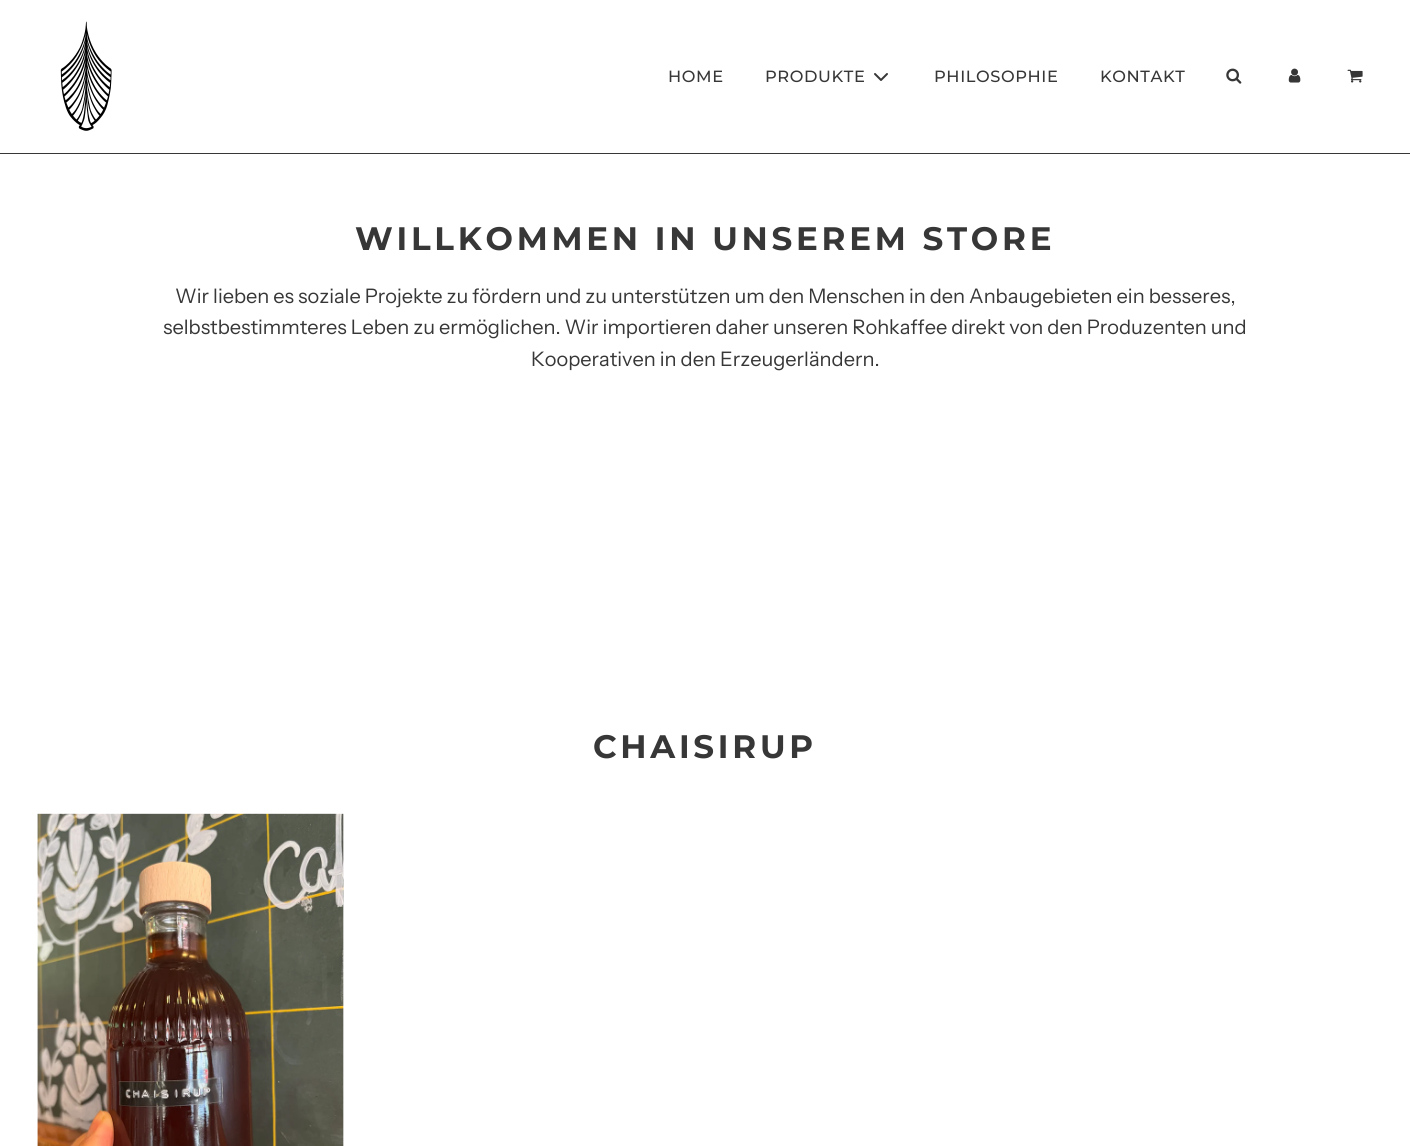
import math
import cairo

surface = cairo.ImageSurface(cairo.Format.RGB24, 1410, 1146)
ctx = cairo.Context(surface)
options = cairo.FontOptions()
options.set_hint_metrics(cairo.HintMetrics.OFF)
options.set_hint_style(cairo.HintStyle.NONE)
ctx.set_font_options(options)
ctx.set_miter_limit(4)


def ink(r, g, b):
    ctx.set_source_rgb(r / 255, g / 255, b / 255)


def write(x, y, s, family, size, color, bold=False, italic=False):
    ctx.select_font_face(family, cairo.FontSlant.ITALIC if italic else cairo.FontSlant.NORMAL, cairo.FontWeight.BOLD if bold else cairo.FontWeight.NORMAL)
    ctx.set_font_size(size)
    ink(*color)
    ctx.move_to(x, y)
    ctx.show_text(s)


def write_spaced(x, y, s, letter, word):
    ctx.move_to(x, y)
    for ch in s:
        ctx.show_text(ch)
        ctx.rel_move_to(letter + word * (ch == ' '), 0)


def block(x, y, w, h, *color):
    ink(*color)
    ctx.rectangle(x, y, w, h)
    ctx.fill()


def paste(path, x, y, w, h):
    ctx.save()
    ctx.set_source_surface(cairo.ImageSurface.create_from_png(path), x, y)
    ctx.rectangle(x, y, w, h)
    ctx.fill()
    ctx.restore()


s1 = dict(family="Instrument Sans", size=20, color=(55, 55, 55))

ink(255, 255, 255)
ctx.paint()
block(0, 153, 1410, 1, 55, 55, 55)
paste("pic1.png", 60, 21, 52, 110)
ctx.select_font_face("Montserrat Medium")
ctx.set_font_size(16.25)
write_spaced(668, 82, "HOME", 0.6, 0)
write_spaced(765, 82, "PRODUKTE", 0.6, 0)
ctx.new_path()
ctx.move_to(875, 74)
ctx.line_to(881, 80)
ctx.line_to(887, 74)
ctx.set_line_cap(cairo.LineCap.ROUND)
ctx.set_line_join(cairo.LineJoin.ROUND)
ctx.stroke()
write_spaced(934, 82, "PHILOSOPHIE", 0.6, 0)
write_spaced(1100, 82, "KONTAKT", 0.6, 0)
paste("pic2.png", 1226, 68, 16, 16)
paste("pic3.png", 1288, 68, 13, 15)
paste("pic4.png", 1347, 69, 16, 14)
ctx.select_font_face("Montserrat", cairo.FontSlant.NORMAL, cairo.FontWeight.BOLD)
ctx.set_font_size(32.5)
write_spaced(355, 250, "WILLKOMMEN IN UNSEREM STORE", 3.75, 0)
write(175, 303, "Wir lieben es soziale Projekte zu fördern und zu unterstützen um den Menschen in den Anbaugebieten ein besseres,", **s1)
write(163, 334, "selbstbestimmteres Leben zu ermöglichen. Wir importieren daher unseren Rohkaffee direkt von den Produzenten und", **s1)
write(531, 366, "Kooperativen in den Erzeugerländern.", **s1)
ctx.select_font_face("Montserrat", cairo.FontSlant.NORMAL, cairo.FontWeight.BOLD)
ctx.set_font_size(32.5)
write_spaced(593, 758, "CHAISIRUP", 3.75, 0)
paste("pic5.png", 37, 813, 307, 333)
surface.write_to_png("screenshot.png")
